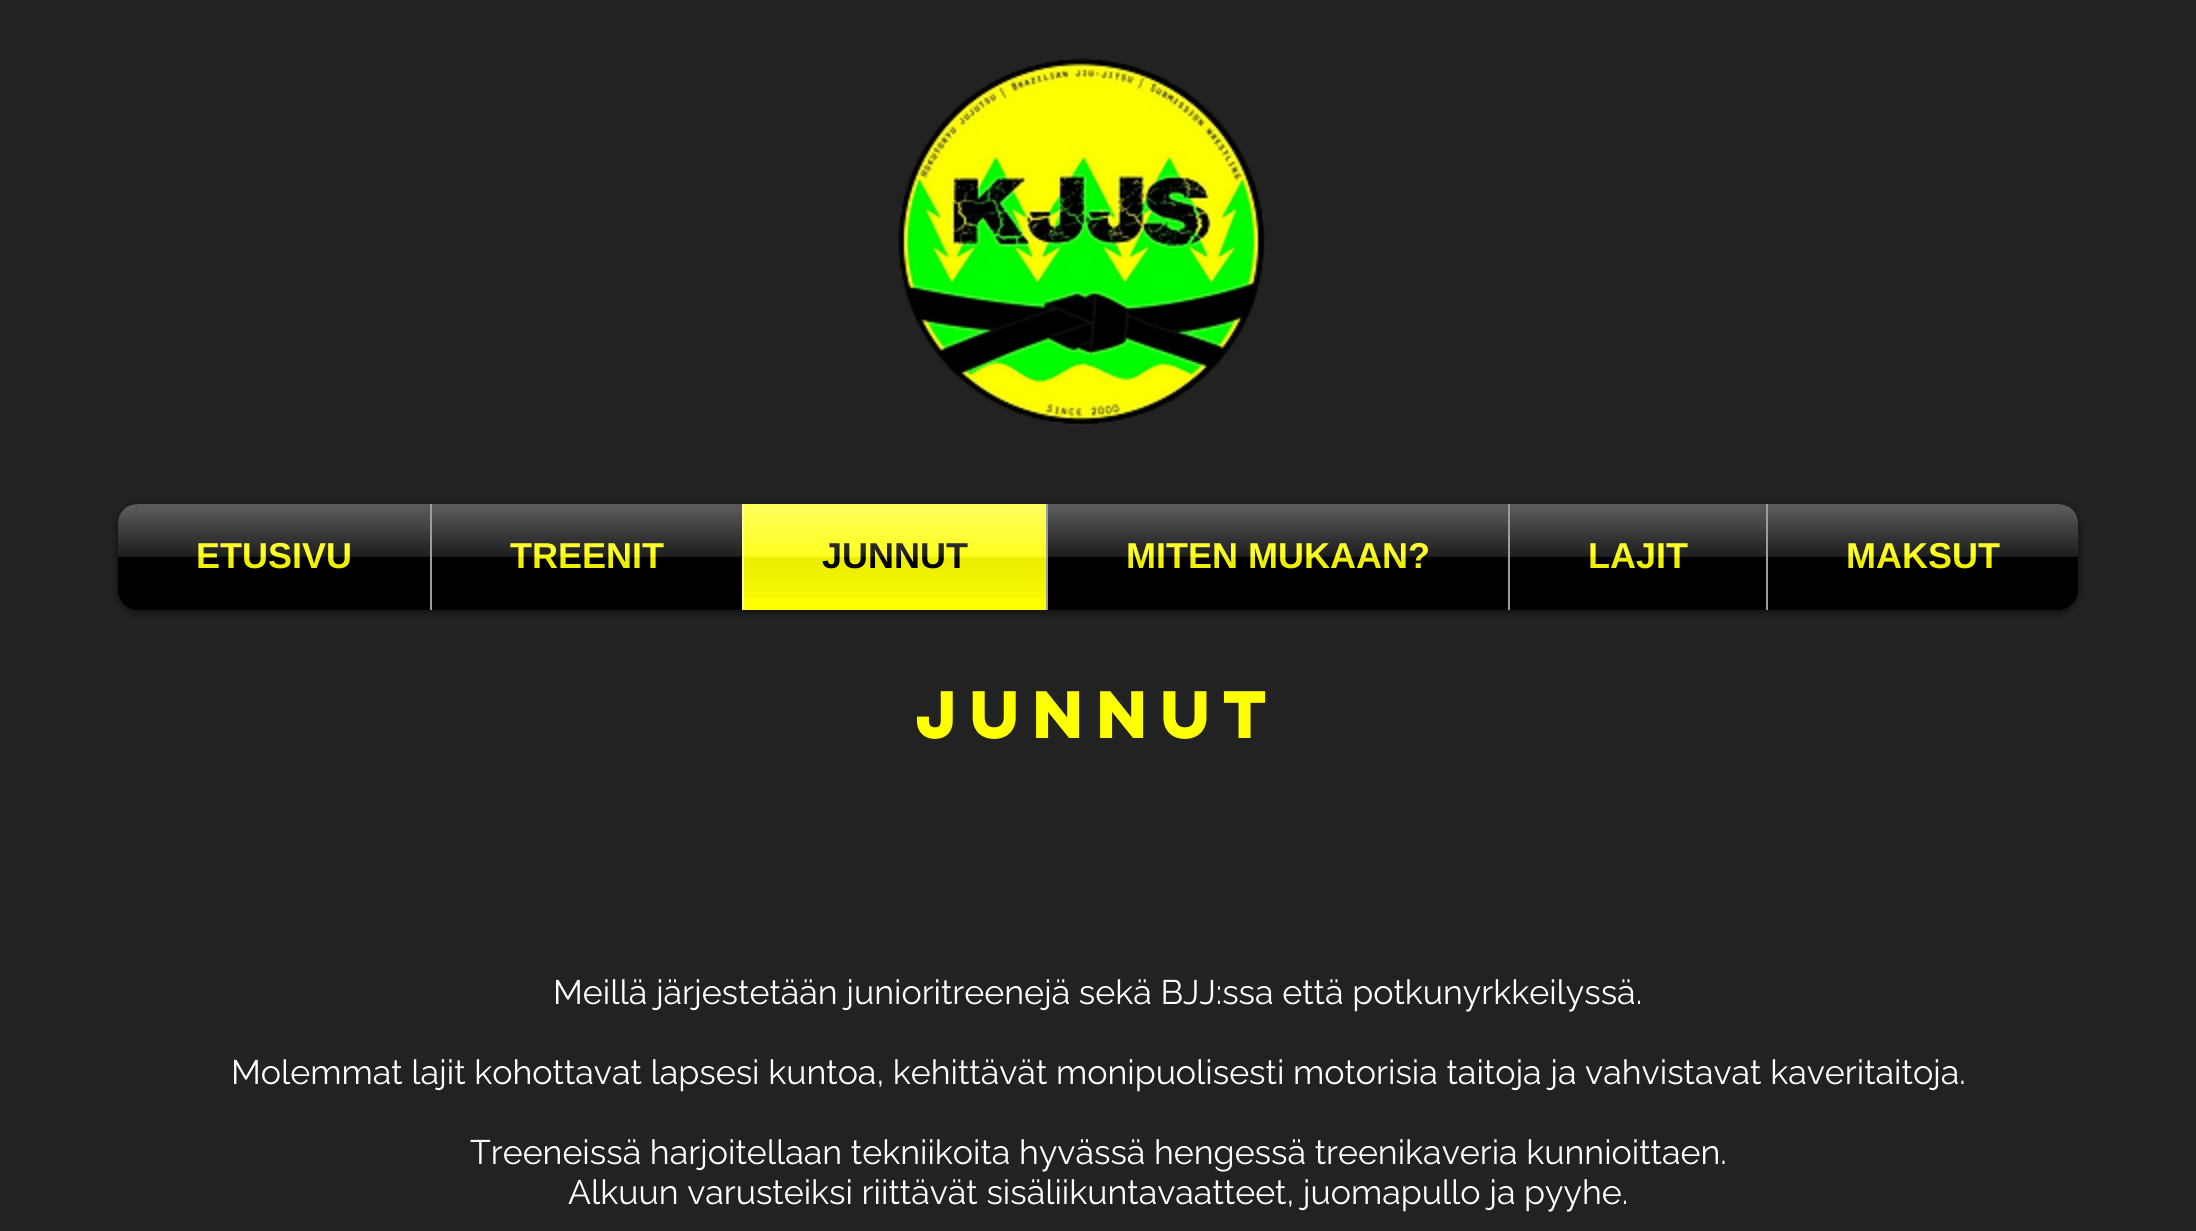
import math
import cairo

surface = cairo.ImageSurface(cairo.Format.RGB24, 2196, 1231)
ctx = cairo.Context(surface)
options = cairo.FontOptions()
options.set_hint_metrics(cairo.HintMetrics.OFF)
options.set_hint_style(cairo.HintStyle.NONE)
ctx.set_font_options(options)
ctx.set_miter_limit(4)


def ink(r, g, b):
    ctx.set_source_rgb(r / 255, g / 255, b / 255)


def write(x, y, s, family, size, color, bold=False, italic=False):
    ctx.select_font_face(family, cairo.FontSlant.ITALIC if italic else cairo.FontSlant.NORMAL, cairo.FontWeight.BOLD if bold else cairo.FontWeight.NORMAL)
    ctx.set_font_size(size)
    ink(*color)
    ctx.move_to(x, y)
    ctx.show_text(s)


def block(x, y, w, h, *color):
    ink(*color)
    ctx.rectangle(x, y, w, h)
    ctx.fill()


def round_path(x, y, w, h, r):
    ctx.new_sub_path()
    for i, (u, v) in enumerate([(x + w - r, y + h - r), (x + r, y + h - r), (x + r, y + r), (x + w - r, y + r)]):
        ctx.arc(u, v, r, i * math.pi / 2, (i + 1) * math.pi / 2)
    ctx.close_path()


def blur_box(x, y, w, h, r, blur, alpha):
    ctx.push_group_with_content(cairo.Content.ALPHA)
    ctx.set_operator(cairo.Operator.SOURCE)
    for i in range(15, -16, -2):
        e = blur * i / 6
        if min(w, h) + 2 * e > 0:
            ctx.set_source_rgba(0, 0, 0, alpha * math.erfc((i - 1) / 8.5) / 2)
            round_path(x - e, y - e, w + 2 * e, h + 2 * e, max(0, min(r + e + blur * .6, min(w, h) / 2 + e)))
            ctx.fill()
    ctx.mask(ctx.pop_group())


def paste(path, x, y, w, h):
    ctx.save()
    ctx.set_source_surface(cairo.ImageSurface.create_from_png(path), x, y)
    ctx.rectangle(x, y, w, h)
    ctx.fill()
    ctx.restore()


s1 = dict(family="Liberation Sans", size=36, color=(254, 255, 1), bold=True)
s2 = dict(family="Liberation Sans", size=36, color=(0, 0, 0), bold=True)
s3 = dict(family="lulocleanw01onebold", size=60, color=(254, 255, 1), bold=True)
s4 = dict(family="Raleway", size=34, color=(255, 255, 255))

ink(34, 34, 34)
ctx.paint()
paste("pic1.png", 898, 58, 368, 368)
ink(0, 0, 0)
blur_box(118, 506, 1960, 106, 20, 4, 0.61)
paste("pic2.png", 118, 504, 1960, 20)
ink(0, 0, 0)
ctx.new_path()
ctx.move_to(138, 504)
ctx.line_to(430, 504)
ctx.line_to(430, 610)
ctx.line_to(138, 610)
ctx.curve_to(127, 610, 118, 601, 118, 590)
ctx.line_to(118, 524)
ctx.curve_to(118, 513, 127, 504, 138, 504)
ctx.close_path()
ctx.fill()
write(196, 568, "ETUSIVU", **s1)
paste("pic3.png", 118, 504, 312, 65)
block(432, 504, 310, 106, 0, 0, 0)
block(430, 504, 2, 106, 156, 156, 156)
write(510, 568, "TREENIT", **s1)
paste("pic4.png", 432, 504, 310, 64)
block(744, 504, 302, 106, 254, 255, 1)
block(742, 504, 2, 106, 255, 255, 156)
write(822, 568, "JUNNUT", **s2)
paste("pic5.png", 744, 504, 302, 94)
block(1048, 504, 460, 106, 0, 0, 0)
block(1046, 504, 2, 106, 156, 156, 156)
write(1126, 568, "MITEN MUKAAN?", **s1)
paste("pic6.png", 1048, 504, 460, 65)
block(1510, 504, 256, 106, 0, 0, 0)
block(1508, 504, 2, 106, 156, 156, 156)
write(1588, 568, "LAJIT", **s1)
paste("pic7.png", 1510, 504, 256, 65)
ink(0, 0, 0)
ctx.new_path()
ctx.move_to(1766, 504)
ctx.line_to(2058, 504)
ctx.curve_to(2069, 504, 2078, 513, 2078, 524)
ctx.line_to(2078, 590)
ctx.curve_to(2078, 601, 2069, 610, 2058, 610)
ctx.line_to(1766, 610)
ctx.close_path()
ctx.fill()
block(1766, 504, 2, 106, 156, 156, 156)
write(1846, 568, "MAKSUT", **s1)
paste("pic8.png", 1768, 504, 310, 65)
write(916, 738, "JUNNUT", **s3)
write(553, 1004, "Meillä järjestetään junioritreenejä sekä BJJ:ssa että potkunyrkkeilyssä.", **s4)
write(231, 1084, "Molemmat lajit kohottavat lapsesi kuntoa, kehittävät monipuolisesti motorisia taitoja ja vahvistavat kaveritaitoja.", **s4)
write(470, 1164, "Treeneissä harjoitellaan tekniikoita hyvässä hengessä treenikaveria kunnioittaen.", **s4)
write(568, 1204, "Alkuun varusteiksi riittävät sisäliikuntavaatteet, juomapullo ja pyyhe.", **s4)
surface.write_to_png("screenshot.png")
